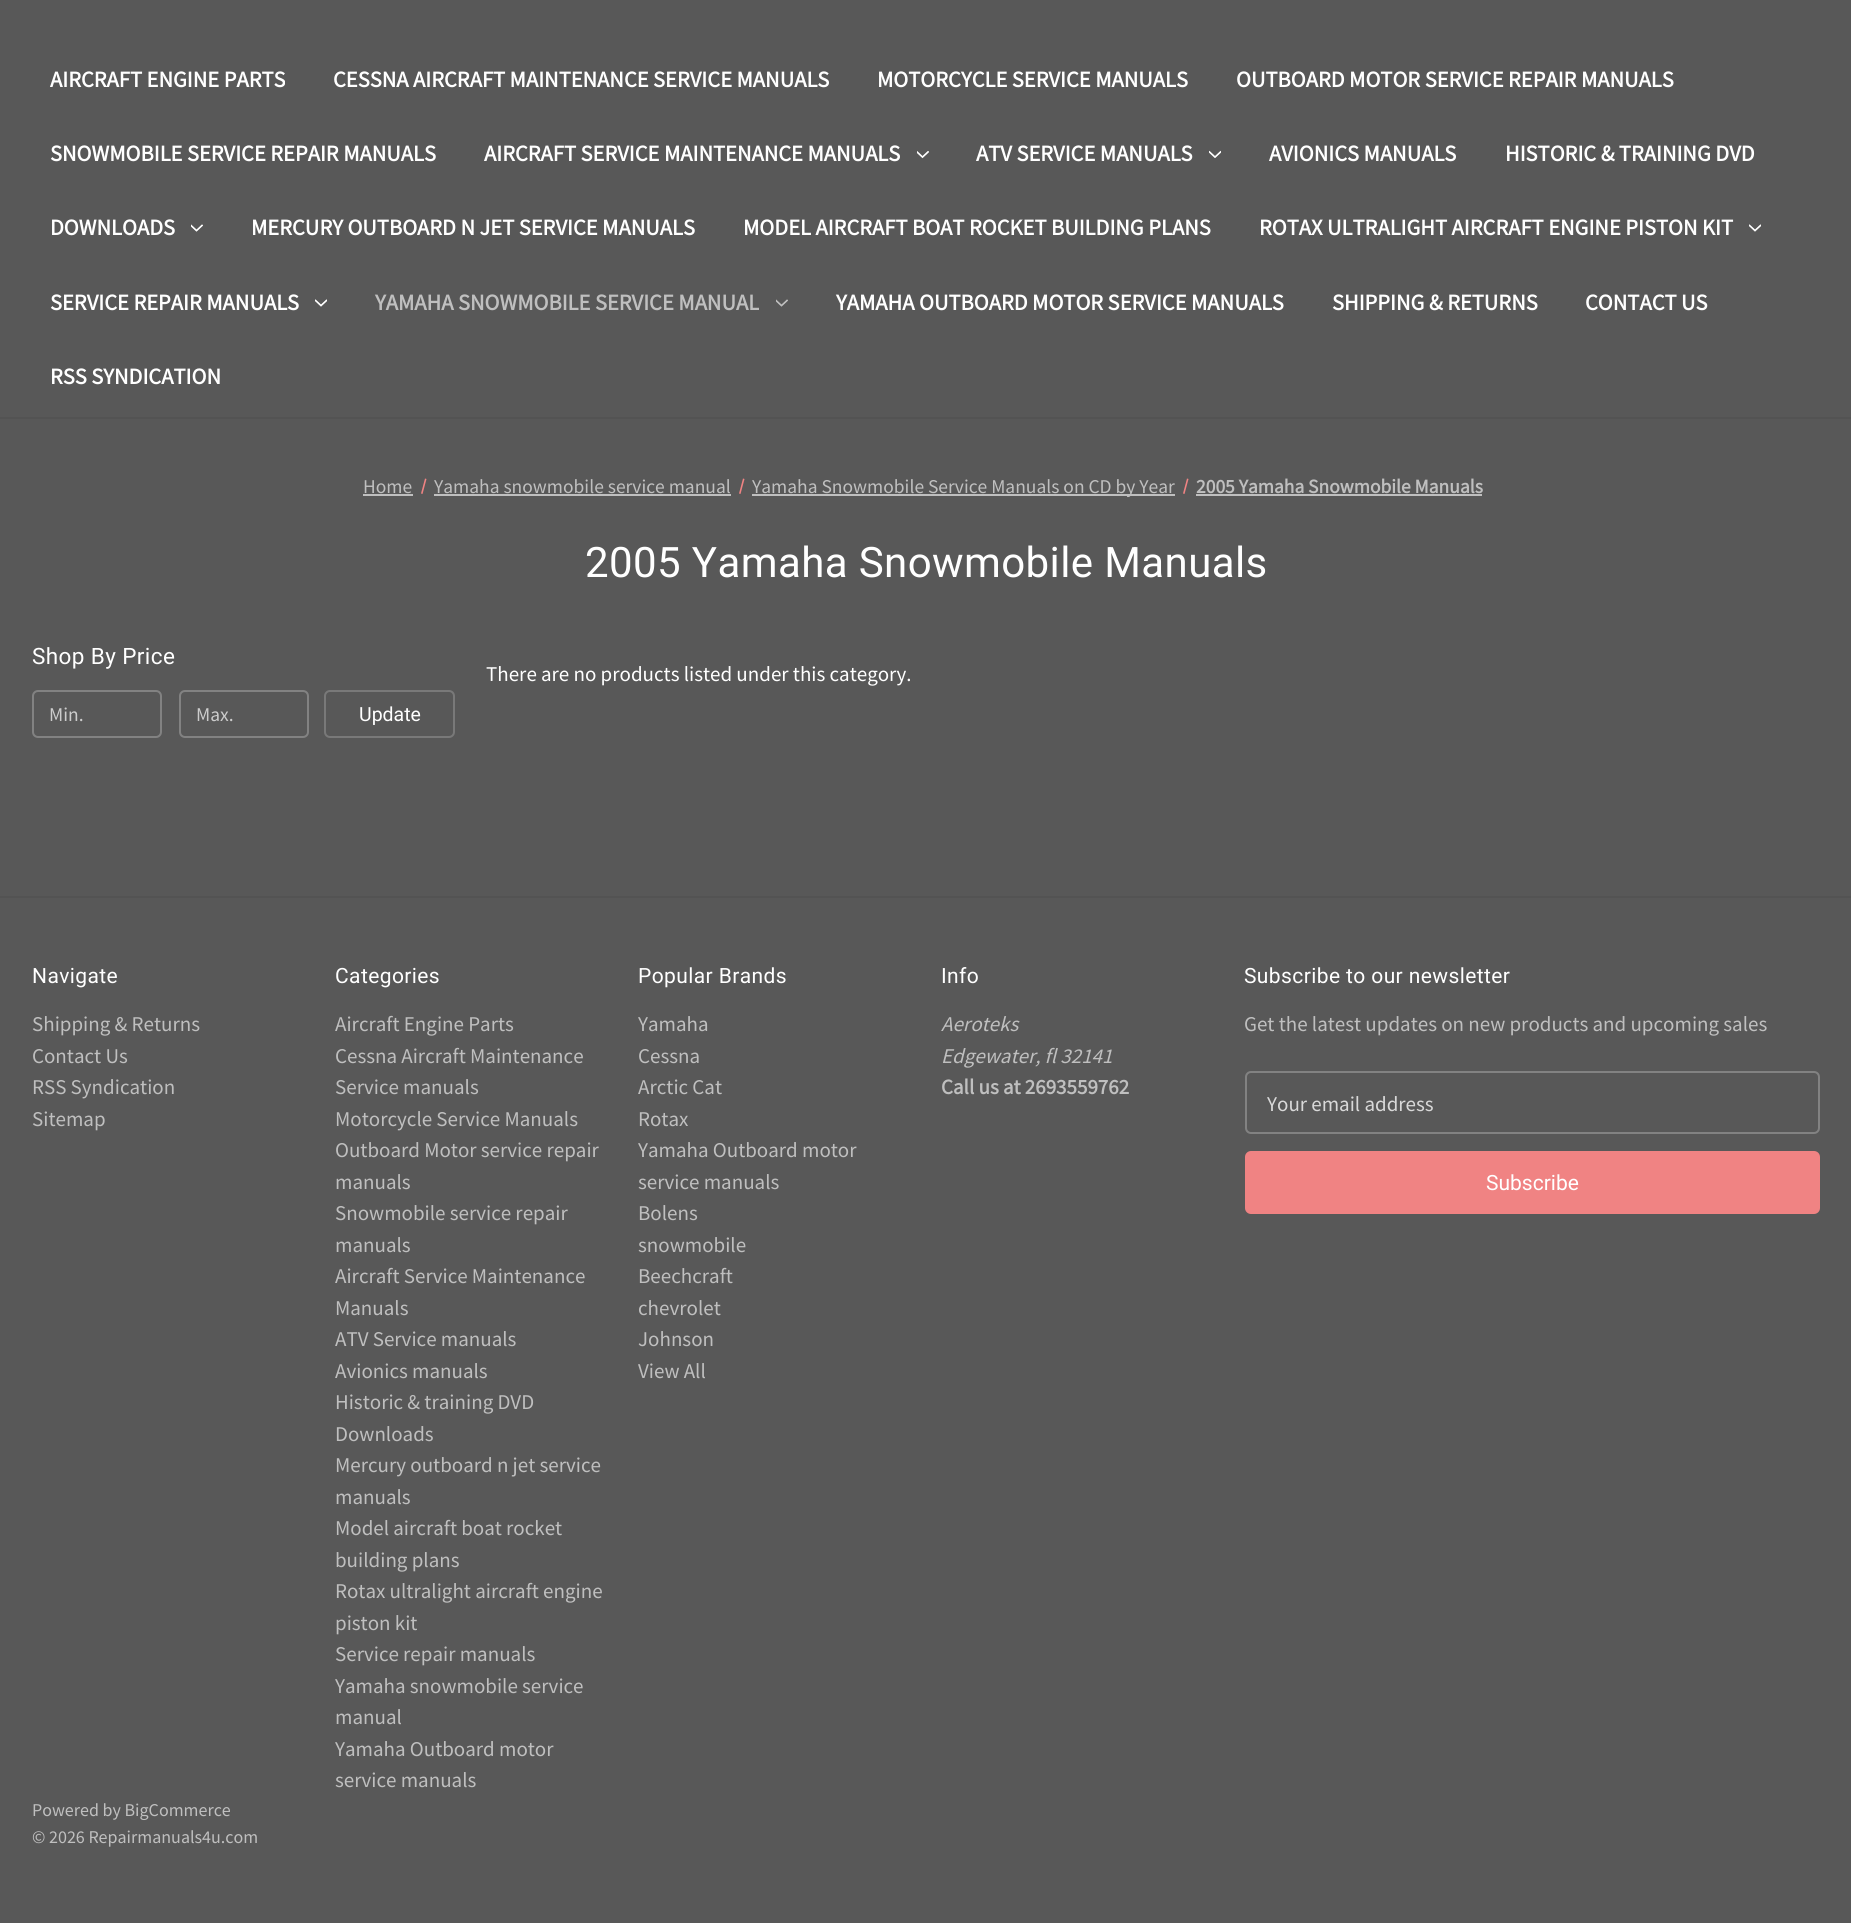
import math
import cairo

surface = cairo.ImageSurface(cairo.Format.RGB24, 1851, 1923)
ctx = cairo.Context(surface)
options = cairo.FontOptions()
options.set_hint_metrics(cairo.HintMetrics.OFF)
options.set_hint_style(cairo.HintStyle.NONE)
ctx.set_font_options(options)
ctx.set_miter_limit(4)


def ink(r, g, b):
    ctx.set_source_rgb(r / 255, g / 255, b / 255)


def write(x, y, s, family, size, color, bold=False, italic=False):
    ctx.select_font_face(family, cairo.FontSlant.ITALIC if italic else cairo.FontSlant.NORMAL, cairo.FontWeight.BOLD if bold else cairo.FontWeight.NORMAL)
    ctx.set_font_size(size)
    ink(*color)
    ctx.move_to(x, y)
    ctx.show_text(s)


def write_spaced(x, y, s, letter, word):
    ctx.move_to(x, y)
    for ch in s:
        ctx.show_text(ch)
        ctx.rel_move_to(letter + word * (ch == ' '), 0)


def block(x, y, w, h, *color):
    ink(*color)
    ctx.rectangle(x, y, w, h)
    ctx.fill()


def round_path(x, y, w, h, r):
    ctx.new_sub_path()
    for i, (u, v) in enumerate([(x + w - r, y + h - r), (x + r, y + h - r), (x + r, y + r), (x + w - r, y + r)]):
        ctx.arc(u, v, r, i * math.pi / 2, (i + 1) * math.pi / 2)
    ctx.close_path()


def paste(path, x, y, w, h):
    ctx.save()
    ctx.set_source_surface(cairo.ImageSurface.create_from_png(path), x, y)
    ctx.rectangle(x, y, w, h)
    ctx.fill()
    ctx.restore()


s1 = dict(family="Source Sans Pro", size=22.5, color=(255, 255, 255), bold=True)
s2 = dict(family="Source Sans Pro", size=22.5, color=(191, 191, 191), bold=True)
s3 = dict(family="Source Sans Pro", size=19.5, color=(191, 191, 191))
s4 = dict(family="Source Sans Pro", size=19.5, color=(191, 191, 191), bold=True)
s5 = dict(family="Source Sans Pro", size=19.5, color=(204, 204, 204))
s6 = dict(family="Roboto", size=19.5, color=(255, 255, 255))
s7 = dict(family="Source Sans Pro", size=21, color=(255, 255, 255))
s8 = dict(family="Source Sans Pro", size=21, color=(191, 191, 191))
s9 = dict(family="Source Sans Pro", size=21, color=(191, 191, 191), italic=True)
s10 = dict(family="Source Sans Pro", size=21, color=(191, 191, 191), bold=True)
s11 = dict(family="Source Sans Pro", size=21, color=(217, 217, 217))
s12 = dict(family="Roboto", size=21, color=(255, 255, 255))
s13 = dict(family="Source Sans Pro", size=18, color=(191, 191, 191))

ink(88, 88, 88)
ctx.paint()
block(0, 417, 1851, 2, 83, 83, 83)
write(50, 87, "AIRCRAFT ENGINE PARTS", **s1)
write(333, 87, "CESSNA AIRCRAFT MAINTENANCE SERVICE MANUALS", **s1)
write(877, 87, "MOTORCYCLE SERVICE MANUALS", **s1)
write(1236, 87, "OUTBOARD MOTOR SERVICE REPAIR MANUALS", **s1)
write(50, 161, "SNOWMOBILE SERVICE REPAIR MANUALS", **s1)
write(484, 161, "AIRCRAFT SERVICE MAINTENANCE MANUALS", **s1)
paste("pic1.png", 917, 151, 12, 8)
write(976, 161, "ATV SERVICE MANUALS", **s1)
paste("pic2.png", 1209, 150, 12, 8)
write(1269, 161, "AVIONICS MANUALS", **s1)
write(1505, 161, "HISTORIC & TRAINING DVD", **s1)
write(50, 235, "DOWNLOADS", **s1)
paste("pic3.png", 191, 224, 12, 8)
write(251, 235, "MERCURY OUTBOARD N JET SERVICE MANUALS", **s1)
write(743, 235, "MODEL AIRCRAFT BOAT ROCKET BUILDING PLANS", **s1)
write(1259, 235, "ROTAX ULTRALIGHT AIRCRAFT ENGINE PISTON KIT", **s1)
paste("pic4.png", 1749, 224, 12, 8)
write(50, 310, "SERVICE REPAIR MANUALS", **s1)
paste("pic4.png", 315, 299, 12, 8)
write(375, 310, "YAMAHA SNOWMOBILE SERVICE MANUAL", **s2)
paste("pic5.png", 776, 299, 12, 8)
write(836, 310, "YAMAHA OUTBOARD MOTOR SERVICE MANUALS", **s1)
write(1332, 310, "SHIPPING & RETURNS", **s1)
write(1585, 310, "CONTACT US", **s1)
write(50, 384, "RSS SYNDICATION", **s1)
write(363, 493, "Home", **s3)
block(363, 494, 50, 2, 191, 191, 191)
ink(240, 131, 131)
ctx.new_path()
ctx.move_to(425, 478.5)
ctx.line_to(426.5, 479)
ctx.line_to(422.5, 494)
ctx.line_to(421, 493.5)
ctx.close_path()
ctx.fill()
write(434, 493, "Yamaha snowmobile service manual", **s3)
block(434, 494, 297, 2, 191, 191, 191)
ink(240, 131, 131)
ctx.new_path()
ctx.move_to(743, 478.5)
ctx.line_to(744.5, 479)
ctx.line_to(740.5, 494)
ctx.line_to(739, 493.5)
ctx.close_path()
ctx.fill()
block(752, 494, 423, 2, 191, 191, 191)
write(752, 493, "Yamaha Snowmobile Service Manuals on CD by Year", **s3)
ink(240, 131, 131)
ctx.new_path()
ctx.move_to(1187, 478.5)
ctx.line_to(1188.5, 479)
ctx.line_to(1184.5, 494)
ctx.line_to(1183, 493.5)
ctx.close_path()
ctx.fill()
write(1196, 493, "2005 Yamaha Snowmobile Manuals", **s4)
block(1196, 494, 286, 2, 191, 191, 191)
ctx.select_font_face("Roboto")
ctx.set_font_size(42)
ink(255, 255, 255)
write_spaced(585, 577, "2005 Yamaha Snowmobile Manuals", 0.4, 0)
ctx.set_font_size(22.5)
write_spaced(32, 664, "Shop By Price", 0.4, 0)
round_path(33, 691, 128, 46, 5)
ink(130, 130, 130)
ctx.stroke()
write(49, 721, "Min.", **s5)
round_path(180, 691, 128, 46, 5)
ink(130, 130, 130)
ctx.stroke()
write(196, 721, "Max.", **s5)
round_path(325, 691, 129, 46, 5)
ink(121, 121, 121)
ctx.stroke()
write(359, 721, "Update", **s6)
write(486, 681, "There are no products listed under this category.", **s7)
block(0, 896, 1851, 2, 83, 83, 83)
ctx.select_font_face("Roboto")
ink(255, 255, 255)
write_spaced(32, 983, "Navigate", 0.4, 0)
write(32, 1031, "Shipping & Returns", **s8)
write(32, 1063, "Contact Us", **s8)
write(32, 1094, "RSS Syndication", **s8)
write(32, 1126, "Sitemap", **s8)
ctx.select_font_face("Roboto")
ink(255, 255, 255)
write_spaced(335, 983, "Categories", 0.4, 0)
write(335, 1031, "Aircraft Engine Parts", **s8)
write(335, 1063, "Cessna Aircraft Maintenance", **s8)
write(335, 1094, "Service manuals", **s8)
write(335, 1126, "Motorcycle Service Manuals", **s8)
write(335, 1157, "Outboard Motor service repair", **s8)
write(335, 1189, "manuals", **s8)
write(335, 1220, "Snowmobile service repair", **s8)
write(335, 1252, "manuals", **s8)
write(335, 1283, "Aircraft Service Maintenance", **s8)
write(335, 1315, "Manuals", **s8)
write(335, 1346, "ATV Service manuals", **s8)
write(335, 1378, "Avionics manuals", **s8)
write(335, 1409, "Historic & training DVD", **s8)
write(335, 1441, "Downloads", **s8)
write(335, 1472, "Mercury outboard n jet service", **s8)
write(335, 1504, "manuals", **s8)
write(335, 1535, "Model aircraft boat rocket", **s8)
write(335, 1567, "building plans", **s8)
write(335, 1598, "Rotax ultralight aircraft engine", **s8)
write(335, 1630, "piston kit", **s8)
write(335, 1661, "Service repair manuals", **s8)
write(335, 1693, "Yamaha snowmobile service", **s8)
write(335, 1724, "manual", **s8)
write(335, 1756, "Yamaha Outboard motor", **s8)
write(335, 1787, "service manuals", **s8)
ctx.select_font_face("Roboto")
ink(255, 255, 255)
write_spaced(638, 983, "Popular Brands", 0.4, 0)
write(638, 1031, "Yamaha", **s8)
write(638, 1063, "Cessna", **s8)
write(638, 1094, "Arctic Cat", **s8)
write(638, 1126, "Rotax", **s8)
write(638, 1157, "Yamaha Outboard motor", **s8)
write(638, 1189, "service manuals", **s8)
write(638, 1220, "Bolens", **s8)
write(638, 1252, "snowmobile", **s8)
write(638, 1283, "Beechcraft", **s8)
write(638, 1315, "chevrolet", **s8)
write(638, 1346, "Johnson", **s8)
write(638, 1378, "View All", **s8)
ctx.select_font_face("Roboto")
ink(255, 255, 255)
write_spaced(941, 983, "Info", 0.4, 0)
write(941, 1031, "Aeroteks", **s9)
write(941, 1063, "Edgewater, fl 32141", **s9)
write(941, 1094, "Call us at 2693559762", **s10)
ctx.select_font_face("Roboto")
ink(255, 255, 255)
write_spaced(1244, 983, "Subscribe to our newsletter", 0.4, 0)
write(1244, 1031, "Get the latest updates on new products and upcoming sales", **s8)
round_path(1246, 1072, 573, 61, 5)
ink(130, 130, 130)
ctx.stroke()
write(1267, 1111, "Your email address", **s11)
ink(240, 131, 131)
round_path(1246, 1152, 573, 61, 5)
ctx.fill_preserve()
ctx.stroke()
write(1486, 1190, "Subscribe", **s12)
write(32, 1816, "Powered by BigCommerce", **s13)
write(32, 1843, "© 2026 Repairmanuals4u.com", **s13)
surface.write_to_png("screenshot.png")
